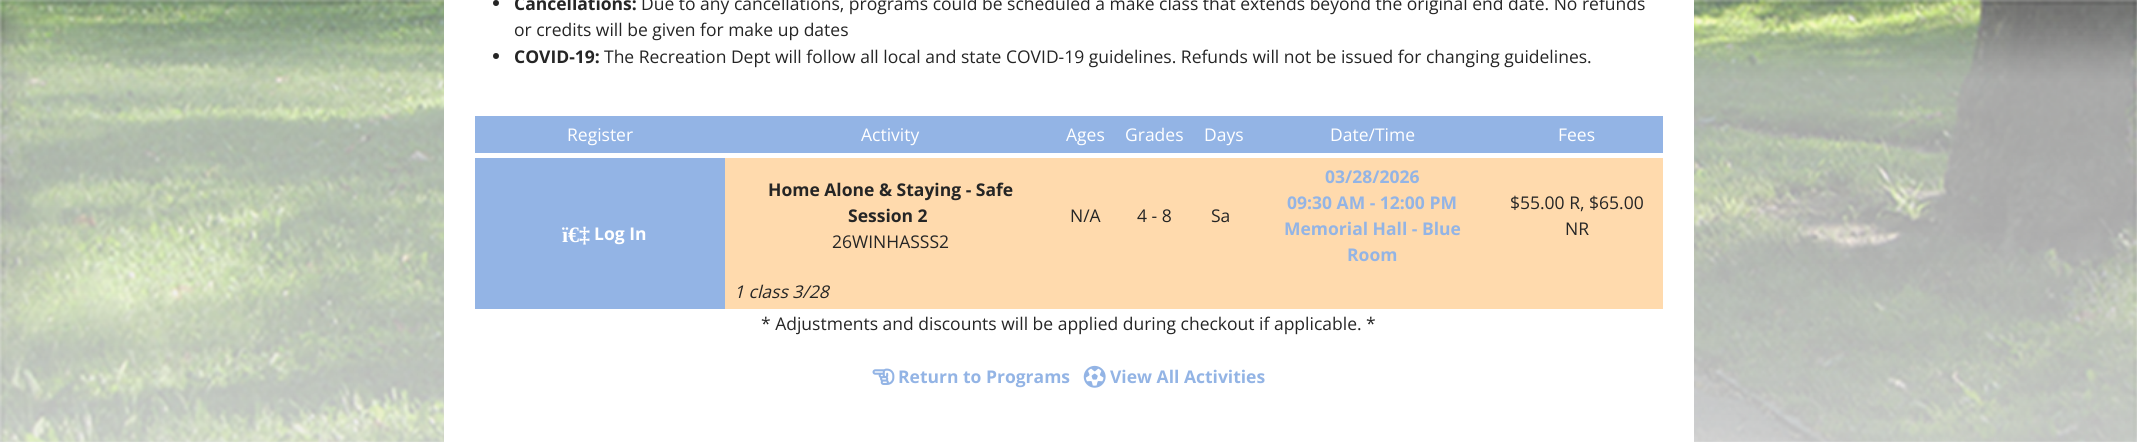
import math
import cairo

surface = cairo.ImageSurface(cairo.Format.RGB24, 2137, 442)
ctx = cairo.Context(surface)
options = cairo.FontOptions()
options.set_hint_metrics(cairo.HintMetrics.OFF)
options.set_hint_style(cairo.HintStyle.NONE)
ctx.set_font_options(options)
ctx.set_miter_limit(4)


def ink(r, g, b):
    ctx.set_source_rgb(r / 255, g / 255, b / 255)


def write(x, y, s, family, size, color, bold=False, italic=False):
    ctx.select_font_face(family, cairo.FontSlant.ITALIC if italic else cairo.FontSlant.NORMAL, cairo.FontWeight.BOLD if bold else cairo.FontWeight.NORMAL)
    ctx.set_font_size(size)
    ink(*color)
    ctx.move_to(x, y)
    ctx.show_text(s)


def block(x, y, w, h, *color):
    ink(*color)
    ctx.rectangle(x, y, w, h)
    ctx.fill()


def paste(path, x, y, w, h):
    ctx.save()
    ctx.set_source_surface(cairo.ImageSurface.create_from_png(path), x, y)
    ctx.rectangle(x, y, w, h)
    ctx.fill()
    ctx.restore()


s1 = dict(family="Open Sans", size=17.5, color=(37, 37, 37), bold=True)
s2 = dict(family="Open Sans", size=17.5, color=(37, 37, 37))
s3 = dict(family="Open Sans", size=17.5, color=(255, 255, 255))
s4 = dict(family="Open Sans", size=17.5, color=(147, 180, 229), bold=True)
s5 = dict(family="Liberation Serif", size=22, color=(255, 255, 255), bold=True)
s6 = dict(family="Open Sans", size=17.5, color=(255, 255, 255), bold=True)
s7 = dict(family="Open Sans", size=17.5, color=(37, 37, 37), italic=True)

ink(236, 236, 236)
ctx.paint()
paste("pic1.png", 0, 0, 2137, 442)
block(444, 0, 1250, 442, 255, 255, 255)
ink(37, 37, 37)
ctx.arc(496, 3, 3, 0, 2 * math.pi)
ctx.fill()
write(514, 10, "Cancellations:", **s1)
write(641, 10, "Due to any cancellations, programs could be scheduled a make class that extends beyond the original end date. No refunds", **s2)
write(514, 36, "or credits will be given for make up dates", **s2)
ctx.new_path()
ctx.arc(496, 56, 3, 0, 2 * math.pi)
ctx.fill()
write(514, 63, "COVID-19:", **s1)
write(604, 63, "The Recreation Dept will follow all local and state COVID-19 guidelines. Refunds will not be issued for changing guidelines.", **s2)
block(475, 116, 1188, 37, 147, 180, 229)
write(567, 141, "Register", **s3)
write(861, 141, "Activity", **s3)
write(1066, 141, "Ages", **s3)
write(1125, 141, "Grades", **s3)
write(1204, 141, "Days", **s3)
write(1330, 141, "Date/Time", **s3)
write(1558, 141, "Fees", **s3)
block(725, 158, 938, 115, 255, 218, 173)
write(768, 196, "Home Alone & Staying - Safe", **s1)
write(848, 222, "Session 2", **s1)
write(832, 248, "26WINHASSS2", **s2)
write(1070, 222, "N/A", **s2)
write(1137, 222, "4 - 8", **s2)
write(1211, 222, "Sa", **s2)
write(1325, 183, "03/28/2026", **s4)
write(1287, 209, "09:30 AM - 12:00 PM", **s4)
write(1284, 235, "Memorial Hall - Blue", **s4)
write(1347, 261, "Room", **s4)
write(1510, 209, "$55.00 R, $65.00", **s2)
write(1565, 235, "NR", **s2)
block(475, 158, 250, 151, 147, 180, 229)
write(562, 242, "ï€‡", **s5)
write(594, 240, "Log In", **s6)
block(725, 273, 938, 36, 255, 218, 173)
write(734, 298, "1 class 3/28", **s7)
write(761, 330, "* Adjustments and discounts will be applied during checkout if applicable. *", **s2)
paste("pic2.png", 872, 368, 23, 17)
write(898, 383, "Return to Programs", **s4)
paste("pic3.png", 1083, 365, 23, 23)
write(1110, 383, "View All Activities", **s4)
surface.write_to_png("screenshot.png")
